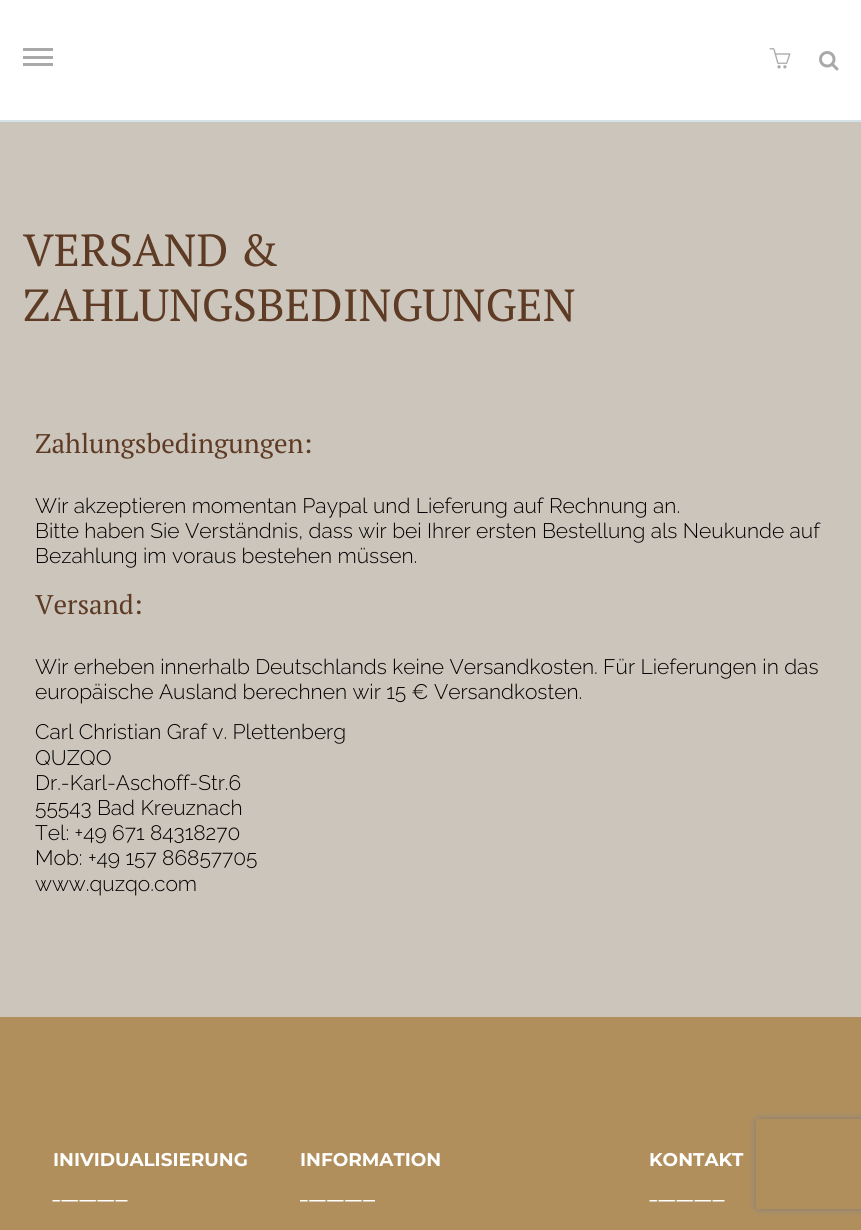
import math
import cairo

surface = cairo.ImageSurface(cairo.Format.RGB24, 861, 1230)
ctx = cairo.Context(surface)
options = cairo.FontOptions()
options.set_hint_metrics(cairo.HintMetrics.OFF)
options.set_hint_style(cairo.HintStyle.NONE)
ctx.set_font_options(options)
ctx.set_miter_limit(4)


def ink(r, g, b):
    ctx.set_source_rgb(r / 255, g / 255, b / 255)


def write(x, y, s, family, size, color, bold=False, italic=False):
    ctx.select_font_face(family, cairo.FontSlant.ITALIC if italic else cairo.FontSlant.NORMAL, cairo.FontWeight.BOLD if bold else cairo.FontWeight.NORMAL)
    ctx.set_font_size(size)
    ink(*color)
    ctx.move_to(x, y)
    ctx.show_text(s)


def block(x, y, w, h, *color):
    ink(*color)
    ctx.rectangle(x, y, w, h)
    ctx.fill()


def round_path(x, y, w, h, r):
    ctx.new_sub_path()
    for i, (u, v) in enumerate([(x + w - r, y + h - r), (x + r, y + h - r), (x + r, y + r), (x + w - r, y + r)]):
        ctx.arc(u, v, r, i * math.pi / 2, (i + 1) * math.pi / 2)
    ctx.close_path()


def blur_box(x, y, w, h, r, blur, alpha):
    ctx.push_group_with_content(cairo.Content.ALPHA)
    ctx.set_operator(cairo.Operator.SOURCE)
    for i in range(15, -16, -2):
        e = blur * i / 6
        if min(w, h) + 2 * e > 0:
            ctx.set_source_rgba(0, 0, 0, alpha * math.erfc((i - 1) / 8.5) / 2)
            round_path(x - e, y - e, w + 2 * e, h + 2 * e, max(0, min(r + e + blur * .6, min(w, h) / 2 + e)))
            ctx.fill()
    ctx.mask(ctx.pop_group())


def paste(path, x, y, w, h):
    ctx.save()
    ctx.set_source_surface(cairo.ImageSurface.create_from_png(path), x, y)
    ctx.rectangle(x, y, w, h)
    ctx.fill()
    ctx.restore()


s1 = dict(family="PT Serif", size=45, color=(94, 59, 36))
s2 = dict(family="PT Serif", size=27, color=(94, 59, 36))
s3 = dict(family="Raleway Light", size=21, color=(0, 0, 0))
s4 = dict(family="Montserrat", size=18.4, color=(255, 255, 255), bold=True)

ink(177, 143, 93)
ctx.paint()
block(0, 0, 861, 120, 255, 255, 255)
block(0, 120, 861, 2, 213, 227, 232)
block(23, 48, 30, 3, 169, 169, 169)
block(23, 56, 30, 3, 169, 169, 169)
block(23, 63, 30, 3, 169, 169, 169)
paste("pic1.png", 769, 48, 22, 21)
paste("pic2.png", 819, 51, 20, 20)
block(0, 122, 861, 895, 204, 197, 187)
write(23, 266, "VERSAND &", **s1)
write(23, 321, "ZAHLUNGSBEDINGUNGEN", **s1)
write(35, 453, "Zahlungsbedingungen:", **s2)
write(35, 513, "Wir akzeptieren momentan Paypal und Lieferung auf Rechnung an.", **s3)
write(35, 538, "Bitte haben Sie Verständnis, dass wir bei Ihrer ersten Bestellung als Neukunde auf", **s3)
write(35, 563, "Bezahlung im voraus bestehen müssen.", **s3)
write(35, 614, "Versand:", **s2)
write(35, 674, "Wir erheben innerhalb Deutschlands keine Versandkosten. Für Lieferungen in das", **s3)
write(35, 699, "europäische Ausland berechnen wir 15 € Versandkosten.", **s3)
write(35, 739, "Carl Christian Graf v. Plettenberg", **s3)
write(35, 765, "QUZQO", **s3)
write(35, 790, "Dr.-Karl-Aschoff-Str.6", **s3)
write(35, 815, "55543 Bad Kreuznach", **s3)
write(35, 840, "Tel: +49 671 84318270", **s3)
write(35, 865, "Mob: +49 157 86857705", **s3)
write(35, 891, "www.quzqo.com", **s3)
write(53, 1166, "INIVIDUALISIERUNG", **s4)
paste("pic3.png", 52, 1200, 76, 2)
write(300, 1166, "INFORMATION", **s4)
paste("pic4.png", 300, 1200, 75, 2)
write(649, 1166, "KONTAKT", **s4)
paste("pic5.png", 649, 1200, 76, 2)
ctx.save()
ctx.set_fill_rule(cairo.FillRule.EVEN_ODD)
ctx.new_path()
ctx.move_to(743, 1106)
ctx.line_to(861, 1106)
ctx.line_to(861, 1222)
ctx.line_to(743, 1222)
ctx.close_path()
ctx.move_to(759, 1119)
ctx.line_to(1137, 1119)
ctx.curve_to(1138.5, 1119, 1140, 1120.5, 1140, 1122)
ctx.line_to(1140, 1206)
ctx.curve_to(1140, 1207.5, 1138.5, 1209, 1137, 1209)
ctx.line_to(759, 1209)
ctx.curve_to(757.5, 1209, 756, 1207.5, 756, 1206)
ctx.line_to(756, 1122)
ctx.curve_to(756, 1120.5, 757.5, 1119, 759, 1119)
ctx.close_path()
ctx.clip()
ink(128, 128, 128)
blur_box(756, 1119, 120, 90, 3, 4, 1)
ctx.restore()
surface.write_to_png("screenshot.png")
